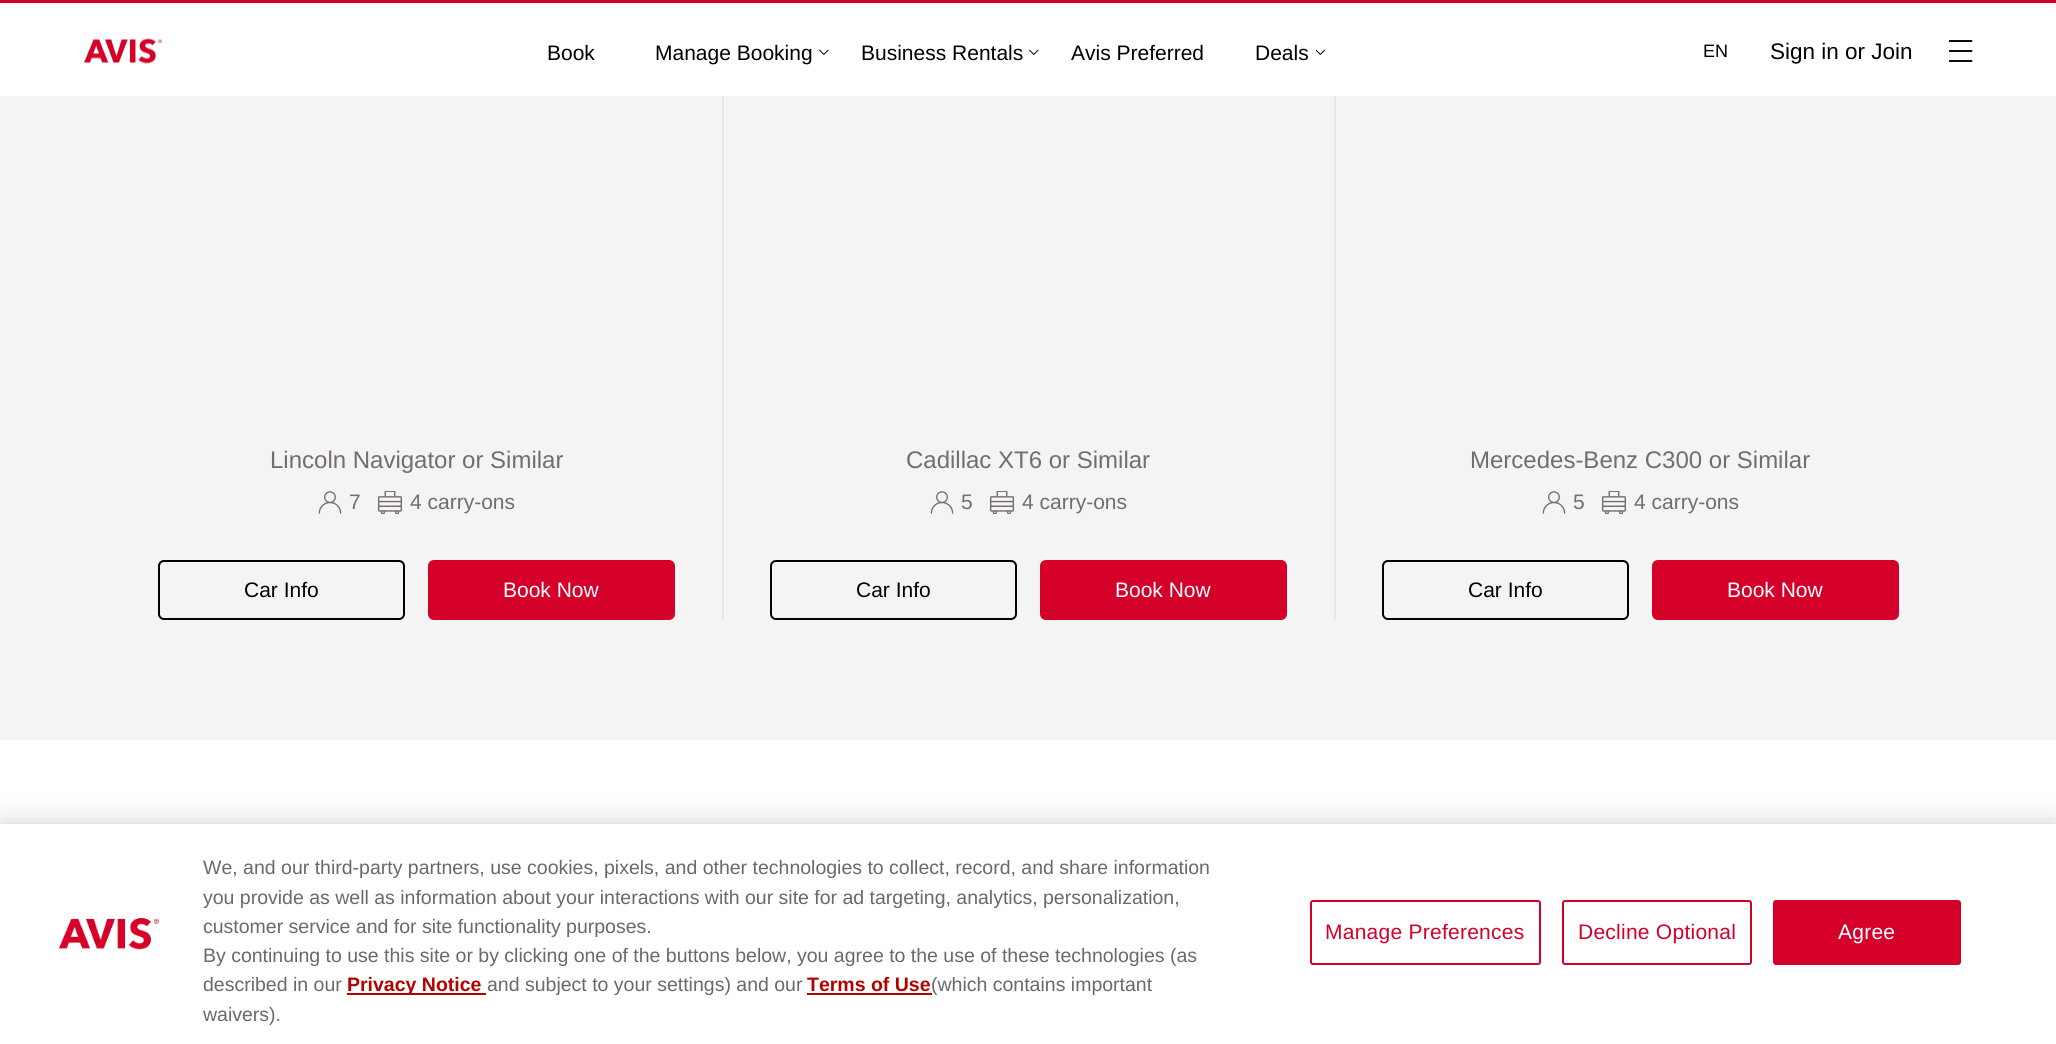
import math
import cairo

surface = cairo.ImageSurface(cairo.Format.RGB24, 2056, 1044)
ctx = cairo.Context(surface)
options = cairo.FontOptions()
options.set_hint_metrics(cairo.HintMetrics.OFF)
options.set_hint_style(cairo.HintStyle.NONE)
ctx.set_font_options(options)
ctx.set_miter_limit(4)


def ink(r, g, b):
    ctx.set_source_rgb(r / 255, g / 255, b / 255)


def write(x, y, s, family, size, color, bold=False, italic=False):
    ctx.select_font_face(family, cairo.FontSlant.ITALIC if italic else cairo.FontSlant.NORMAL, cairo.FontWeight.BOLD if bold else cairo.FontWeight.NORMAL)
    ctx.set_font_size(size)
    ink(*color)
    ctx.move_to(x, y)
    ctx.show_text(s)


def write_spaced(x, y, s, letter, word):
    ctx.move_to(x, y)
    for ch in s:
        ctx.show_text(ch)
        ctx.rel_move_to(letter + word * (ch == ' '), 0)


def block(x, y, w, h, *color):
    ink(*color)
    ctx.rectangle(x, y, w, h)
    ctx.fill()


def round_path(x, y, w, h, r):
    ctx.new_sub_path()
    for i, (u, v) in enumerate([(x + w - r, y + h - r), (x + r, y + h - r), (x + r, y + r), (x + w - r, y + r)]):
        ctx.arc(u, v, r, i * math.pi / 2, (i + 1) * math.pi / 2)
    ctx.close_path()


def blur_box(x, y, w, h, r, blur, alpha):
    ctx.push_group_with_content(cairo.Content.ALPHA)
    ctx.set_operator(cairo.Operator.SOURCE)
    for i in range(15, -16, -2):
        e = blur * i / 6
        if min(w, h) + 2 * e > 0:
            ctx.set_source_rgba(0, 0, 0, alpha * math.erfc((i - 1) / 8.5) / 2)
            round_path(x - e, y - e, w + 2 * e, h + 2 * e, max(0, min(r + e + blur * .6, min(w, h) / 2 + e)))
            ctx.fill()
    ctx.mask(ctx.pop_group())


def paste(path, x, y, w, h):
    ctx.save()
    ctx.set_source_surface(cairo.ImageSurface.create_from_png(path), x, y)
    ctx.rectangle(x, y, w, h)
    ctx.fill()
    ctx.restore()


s1 = dict(family="Liberation Sans", size=21, color=(0, 0, 0))
s2 = dict(family="Liberation Sans", size=18, color=(0, 0, 0))
s3 = dict(family="Liberation Sans", size=22.5, color=(0, 0, 0))
s4 = dict(family="Liberation Sans", size=24, color=(115, 109, 109))
s5 = dict(family="Liberation Sans", size=21, color=(115, 109, 109))
s6 = dict(family="Liberation Sans", size=21, color=(255, 255, 255))
s7 = dict(family="Liberation Sans", size=19.5, color=(105, 105, 105))
s8 = dict(family="Liberation Sans", size=19.5, color=(181, 0, 0), bold=True)

ink(255, 255, 255)
ctx.paint()
block(0, 0, 2056, 3, 212, 0, 42)
paste("pic1.png", 84, 38, 78, 26)
write(547, 60, "Book", **s1)
write(655, 60, "Manage Booking", **s1)
paste("pic2.png", 819, 49, 10, 6)
write(861, 60, "Business Rentals", **s1)
paste("pic2.png", 1029, 49, 10, 6)
write(1071, 60, "Avis Preferred", **s1)
write(1255, 60, "Deals", **s1)
paste("pic3.png", 1316, 49, 9, 6)
write(1703, 57, "EN", **s2)
write(1770, 59, "Sign in or Join", **s3)
paste("pic4.png", 1949, 40, 24, 22)
block(0, 96, 2056, 644, 244, 244, 244)
write(270, 468, "Lincoln Navigator or Similar", **s4)
paste("pic5.png", 318, 491, 24, 23)
write(349, 509, "7", **s5)
paste("pic6.png", 378, 491, 24, 23)
write(410, 509, "4 carry-ons", **s5)
round_path(159, 561, 245, 58, 5)
ink(0, 0, 0)
ctx.stroke()
write(244, 597, "Car Info", **s1)
ink(212, 0, 42)
round_path(428, 560, 247, 60, 6)
ctx.fill()
write(503, 597, "Book Now", **s6)
block(722, 96, 2, 524, 232, 230, 230)
write(906, 468, "Cadillac XT6 or Similar", **s4)
paste("pic5.png", 930, 491, 24, 23)
write(961, 509, "5", **s5)
paste("pic6.png", 990, 491, 24, 23)
write(1022, 509, "4 carry-ons", **s5)
round_path(771, 561, 245, 58, 5)
ink(0, 0, 0)
ctx.stroke()
write(856, 597, "Car Info", **s1)
ink(212, 0, 42)
round_path(1040, 560, 247, 60, 6)
ctx.fill()
write(1115, 597, "Book Now", **s6)
block(1334, 96, 2, 524, 232, 230, 230)
write(1470, 468, "Mercedes-Benz C300 or Similar", **s4)
paste("pic5.png", 1542, 491, 24, 23)
write(1573, 509, "5", **s5)
paste("pic6.png", 1602, 491, 24, 23)
write(1634, 509, "4 carry-ons", **s5)
round_path(1383, 561, 245, 58, 5)
ink(0, 0, 0)
ctx.stroke()
write(1468, 597, "Car Info", **s1)
ink(212, 0, 42)
round_path(1652, 560, 247, 60, 6)
ctx.fill()
write(1727, 597, "Book Now", **s6)
ink(0, 0, 0)
blur_box(0, 824, 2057, 220, 0, 13.5, 0.2)
block(0, 824, 2056, 220, 255, 255, 255)
paste("pic7.png", 58, 918, 101, 32)
write(203, 874, "We, and our third-party partners, use cookies, pixels, and other technologies to collect, record, and share information", **s7)
write(203, 904, "you provide as well as information about your interactions with our site for ad targeting, analytics, personalization,", **s7)
write(203, 933, "customer service and for site functionality purposes.", **s7)
write(203, 962, "By continuing to use this site or by clicking one of the buttons below, you agree to the use of these technologies (as", **s7)
write(203, 991, "described in our", **s7)
block(347, 993, 139, 2, 181, 0, 0)
write(347, 991, "Privacy Notice", **s8)
write(487, 991, "and subject to your settings) and our", **s7)
write(807, 991, "Terms of Use", **s8)
block(807, 993, 125, 2, 181, 0, 0)
write(931, 991, "(which contains important", **s7)
write(203, 1021, "waivers).", **s7)
round_path(1311, 901, 229, 63, 2)
ink(212, 0, 42)
ctx.stroke()
ctx.set_font_size(21)
write_spaced(1325, 939, "Manage Preferences", 0.25, 0)
round_path(1563, 901, 188, 63, 2)
ctx.stroke()
write_spaced(1578, 939, "Decline Optional", 0.25, 0)
round_path(1774, 901, 186, 63, 2)
ctx.fill_preserve()
ctx.stroke()
ink(255, 255, 255)
write_spaced(1838, 939, "Agree", 0.25, 0)
surface.write_to_png("screenshot.png")
